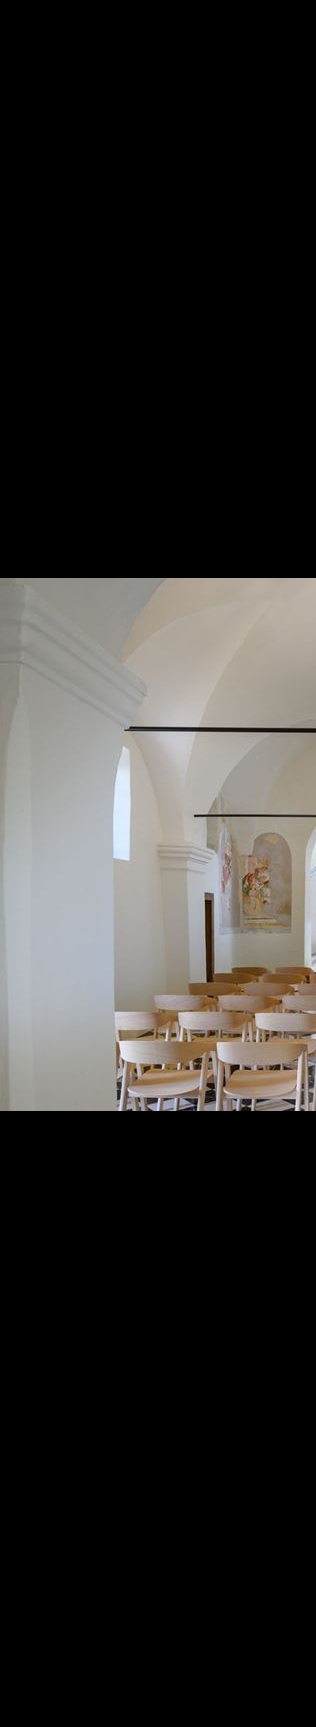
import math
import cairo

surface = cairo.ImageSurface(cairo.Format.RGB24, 316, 1727)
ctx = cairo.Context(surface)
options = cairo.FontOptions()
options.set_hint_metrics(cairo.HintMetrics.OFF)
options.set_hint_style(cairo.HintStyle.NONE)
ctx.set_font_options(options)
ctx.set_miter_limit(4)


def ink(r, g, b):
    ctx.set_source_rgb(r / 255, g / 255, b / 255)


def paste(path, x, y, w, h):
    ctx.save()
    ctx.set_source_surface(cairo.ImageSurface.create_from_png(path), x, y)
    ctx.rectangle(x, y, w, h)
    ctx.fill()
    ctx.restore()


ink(0, 0, 0)
ctx.paint()
paste("pic1.png", 0, 578, 316, 533)
surface.write_to_png("screenshot.png")
